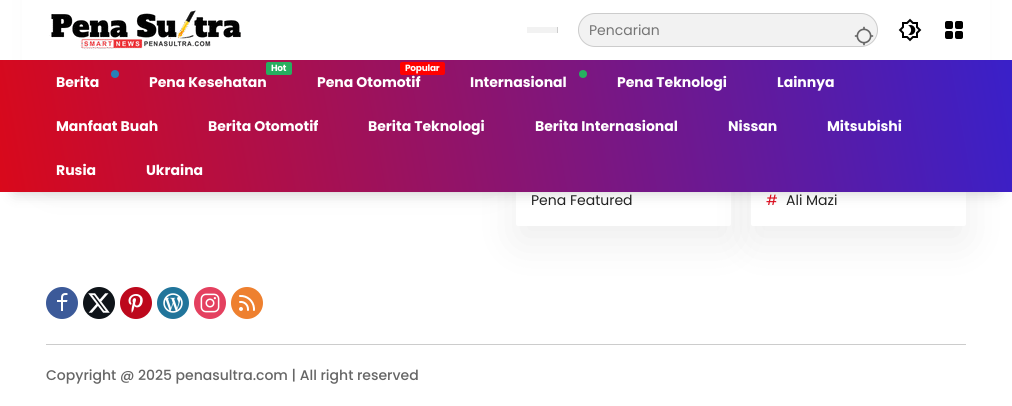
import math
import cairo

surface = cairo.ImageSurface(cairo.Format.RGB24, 1012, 406)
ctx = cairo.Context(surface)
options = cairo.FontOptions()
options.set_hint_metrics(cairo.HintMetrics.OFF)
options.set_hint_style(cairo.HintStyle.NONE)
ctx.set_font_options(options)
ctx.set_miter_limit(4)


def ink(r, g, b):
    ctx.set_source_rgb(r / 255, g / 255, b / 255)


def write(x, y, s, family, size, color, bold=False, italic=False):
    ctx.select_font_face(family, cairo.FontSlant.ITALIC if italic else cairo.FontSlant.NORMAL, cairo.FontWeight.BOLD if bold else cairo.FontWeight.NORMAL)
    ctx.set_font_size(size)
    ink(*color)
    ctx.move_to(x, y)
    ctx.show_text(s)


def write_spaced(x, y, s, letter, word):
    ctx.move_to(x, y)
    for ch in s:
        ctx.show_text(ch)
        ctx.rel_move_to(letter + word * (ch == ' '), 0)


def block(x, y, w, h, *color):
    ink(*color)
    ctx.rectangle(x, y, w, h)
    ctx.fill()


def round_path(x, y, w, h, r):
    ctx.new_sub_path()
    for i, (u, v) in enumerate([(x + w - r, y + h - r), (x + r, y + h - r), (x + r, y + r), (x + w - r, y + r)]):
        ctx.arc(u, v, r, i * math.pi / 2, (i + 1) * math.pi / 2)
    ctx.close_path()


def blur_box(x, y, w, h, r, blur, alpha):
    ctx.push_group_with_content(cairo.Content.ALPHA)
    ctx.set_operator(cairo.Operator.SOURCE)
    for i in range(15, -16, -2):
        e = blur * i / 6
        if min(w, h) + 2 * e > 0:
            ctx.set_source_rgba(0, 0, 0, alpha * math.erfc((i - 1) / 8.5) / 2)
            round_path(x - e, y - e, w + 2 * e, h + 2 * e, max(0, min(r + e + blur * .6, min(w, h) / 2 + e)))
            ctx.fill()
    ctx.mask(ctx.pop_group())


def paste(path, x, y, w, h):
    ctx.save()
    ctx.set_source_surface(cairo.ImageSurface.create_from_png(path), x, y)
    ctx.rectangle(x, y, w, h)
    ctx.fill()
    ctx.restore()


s1 = dict(family="Poppins", size=14, color=(117, 117, 117))
s2 = dict(family="Poppins", size=14, color=(255, 255, 255), bold=True)
s3 = dict(family="Poppins", size=14, color=(33, 33, 33))
s4 = dict(family="Poppins", size=14, color=(217, 9, 27))
s5 = dict(family="Poppins Medium", size=14, color=(102, 102, 102))

ink(255, 255, 255)
ctx.paint()
ink(0, 0, 0)
blur_box(46, -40, 450, 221, 2, 22.5, 0.07)
blur_box(516, -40, 215, 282, 2, 22.5, 0.07)
ink(255, 255, 255)
round_path(516, -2, 215, 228, 2)
ctx.fill()
ink(0, 0, 0)
blur_box(751, -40, 215, 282, 2, 22.5, 0.07)
ink(255, 255, 255)
round_path(751, -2, 215, 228, 2)
ctx.fill()
block(22, 0, 968, 60, 255, 255, 255)
paste("pic1.png", 49, 10, 192, 40)
block(527, 27, 31, 6, 242, 242, 242)
block(557, 27, 1, 6, 204, 204, 204)
ink(242, 242, 242)
round_path(578.5, 13.5, 299, 33, 16.5)
ctx.fill_preserve()
ink(204, 204, 204)
ctx.set_line_width(1)
ctx.stroke()
write(589, 35, "Pencarian", **s1)
paste("pic2.png", 854, 26, 20, 20)
paste("pic3.png", 898, 18, 24, 24)
paste("pic4.png", 945, 21, 18, 18)
ink(0, 0, 0)
blur_box(15, 90, 982, 102, 0, 7.5, 0.2)
gradient = cairo.LinearGradient(4, 215, 1008, 37)
gradient.add_color_stop_rgba(0, 0.851, 0.035, 0.106, 1)
gradient.add_color_stop_rgba(1, 0.224, 0.125, 0.788, 1)
ctx.set_source(gradient)
ctx.rectangle(0, 60, 1012, 132)
ctx.fill()
ink(41, 128, 185)
ctx.arc(115, 74, 4, 0, 2 * math.pi)
ctx.fill()
write(56, 87, "Berita", **s2)
ink(39, 174, 96)
round_path(266, 62, 26, 13, 2)
ctx.fill()
ctx.set_font_size(9)
ink(255, 255, 255)
write_spaced(271, 71, "Hot", -0.25, 0)
write(149, 87, "Pena Kesehatan", **s2)
ink(255, 0, 0)
round_path(400, 62, 45, 13, 2)
ctx.fill()
ctx.set_font_size(9)
ink(255, 255, 255)
write_spaced(405, 71, "Popular", -0.25, 0)
write(317, 87, "Pena Otomotif", **s2)
ink(39, 174, 96)
ctx.new_path()
ctx.arc(583, 74, 4, 0, 2 * math.pi)
ctx.fill()
write(470, 87, "Internasional", **s2)
write(617, 87, "Pena Teknologi", **s2)
write(777, 87, "Lainnya", **s2)
write(56, 131, "Manfaat Buah", **s2)
write(208, 131, "Berita Otomotif", **s2)
write(368, 131, "Berita Teknologi", **s2)
write(535, 131, "Berita Internasional", **s2)
write(728, 131, "Nissan", **s2)
write(827, 131, "Mitsubishi", **s2)
write(56, 175, "Rusia", **s2)
write(146, 175, "Ukraina", **s2)
write(531, 205, "Pena Featured", **s3)
write(766, 205, "#", **s4)
write(786, 205, "Ali Mazi", **s3)
block(46, 344, 920, 1, 204, 204, 204)
ink(60, 90, 153)
ctx.new_path()
ctx.arc(62, 303, 16, 0, 2 * math.pi)
ctx.fill()
paste("pic5.png", 57, 293, 11, 18)
ink(15, 20, 25)
ctx.arc(99, 303, 16, 0, 2 * math.pi)
ctx.fill()
paste("pic6.png", 88, 293, 22, 20)
ink(189, 8, 28)
ctx.arc(136, 303, 16, 0, 2 * math.pi)
ctx.fill()
paste("pic7.png", 128, 294, 15, 19)
ink(33, 117, 155)
ctx.arc(173, 303, 16, 0, 2 * math.pi)
ctx.fill()
paste("pic8.png", 163, 293, 20, 20)
ink(228, 64, 95)
ctx.arc(210, 303, 16, 0, 2 * math.pi)
ctx.fill()
paste("pic9.png", 200, 293, 20, 20)
ink(238, 128, 47)
ctx.arc(247, 303, 16, 0, 2 * math.pi)
ctx.fill()
paste("pic10.png", 239, 295, 16, 16)
write(46, 380, "Copyright @ 2025 penasultra.com | All right reserved", **s5)
surface.write_to_png("screenshot.png")
